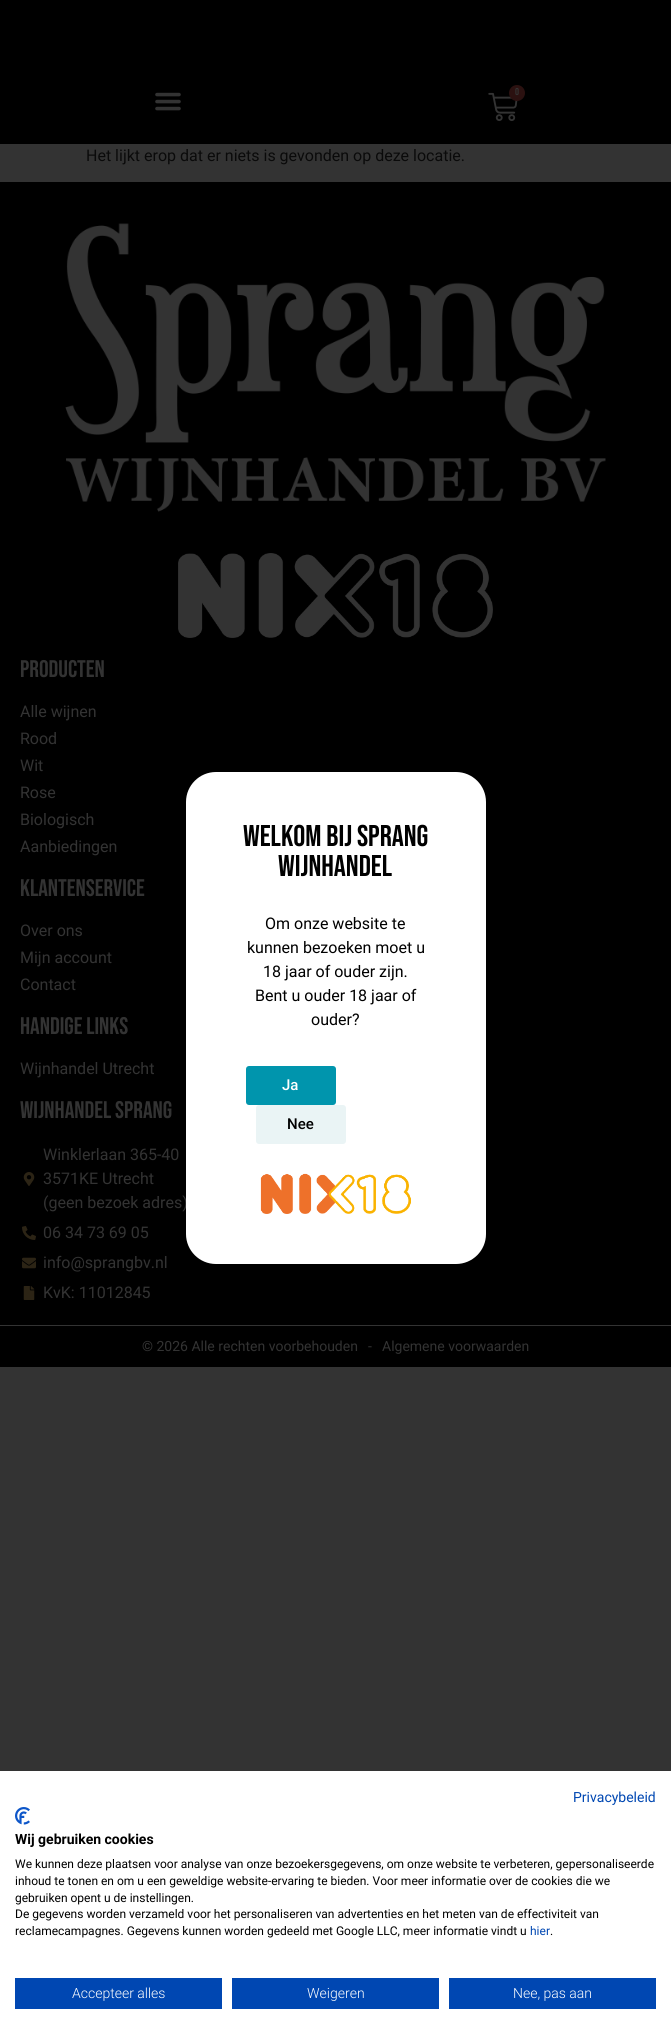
import math
import cairo

surface = cairo.ImageSurface(cairo.Format.RGB24, 671, 2036)
ctx = cairo.Context(surface)
options = cairo.FontOptions()
options.set_hint_metrics(cairo.HintMetrics.OFF)
options.set_hint_style(cairo.HintStyle.NONE)
ctx.set_font_options(options)
ctx.set_miter_limit(4)


def ink(r, g, b):
    ctx.set_source_rgb(r / 255, g / 255, b / 255)


def write(x, y, s, family, size, color, bold=False, italic=False):
    ctx.select_font_face(family, cairo.FontSlant.ITALIC if italic else cairo.FontSlant.NORMAL, cairo.FontWeight.BOLD if bold else cairo.FontWeight.NORMAL)
    ctx.set_font_size(size)
    ink(*color)
    ctx.move_to(x, y)
    ctx.show_text(s)


def block(x, y, w, h, *color):
    ink(*color)
    ctx.rectangle(x, y, w, h)
    ctx.fill()


def round_path(x, y, w, h, r):
    ctx.new_sub_path()
    for i, (u, v) in enumerate([(x + w - r, y + h - r), (x + r, y + h - r), (x + r, y + r), (x + w - r, y + r)]):
        ctx.arc(u, v, r, i * math.pi / 2, (i + 1) * math.pi / 2)
    ctx.close_path()


def paste(path, x, y, w, h):
    ctx.save()
    ctx.set_source_surface(cairo.ImageSurface.create_from_png(path), x, y)
    ctx.rectangle(x, y, w, h)
    ctx.fill()
    ctx.restore()


s1 = dict(family="Bebas Neue", size=10, color=(51, 51, 51))
s2 = dict(family="Roboto", size=16, color=(10, 10, 10))
s3 = dict(family="Bebas Neue", size=24, color=(51, 51, 51))
s4 = dict(family="Roboto", size=16, color=(51, 51, 51))
s5 = dict(family="Roboto", size=14, color=(51, 51, 51))
s6 = dict(family="Bebas Neue", size=30, color=(0, 0, 0))
s7 = dict(family="Roboto", size=16, color=(0, 0, 0))
s8 = dict(family="Roboto Medium", size=15, color=(255, 255, 255))
s9 = dict(family="Roboto Medium", size=15, color=(0, 0, 0))
s10 = dict(family="Roboto", size=14, color=(0, 71, 178))
s11 = dict(family="Roboto", size=14, color=(0, 0, 0), bold=True)
s12 = dict(family="Roboto", size=12, color=(0, 0, 0))
s13 = dict(family="Roboto", size=12, color=(0, 71, 178))
s14 = dict(family="Roboto Light", size=14, color=(255, 255, 255))

ink(51, 51, 51)
ctx.paint()
block(0, 0, 671, 144, 0, 0, 0)
paste("pic1.png", 155, 92, 26, 19)
paste("pic2.png", 488, 92, 30, 30)
ink(43, 17, 16)
ctx.arc(517, 93, 8, 0, 2 * math.pi)
ctx.fill()
write(515, 95, "0", **s1)
write(86, 161, "Het lijkt erop dat er niets is gevonden op deze locatie.", **s2)
block(0, 182, 671, 1143, 0, 0, 0)
paste("pic3.png", 65, 223, 541, 289)
paste("pic4.png", 178, 553, 315, 85)
write(20, 677, "Producten", **s3)
write(20, 717, "Alle wijnen", **s4)
write(20, 744, "Rood", **s4)
write(20, 771, "Wit", **s4)
write(20, 798, "Rose", **s4)
write(20, 825, "Biologisch", **s4)
write(20, 852, "Aanbiedingen", **s4)
write(20, 896, "Klantenservice", **s3)
write(20, 936, "Over ons", **s4)
write(20, 963, "Mijn account", **s4)
write(20, 990, "Contact", **s4)
write(20, 1034, "Handige Links", **s3)
write(20, 1074, "Wijnhandel Utrecht", **s4)
write(20, 1118, "Wijnhandel Sprang", **s3)
paste("pic5.png", 23, 1172, 12, 14)
write(43, 1160, "Winklerlaan 365-40", **s4)
write(43, 1184, "3571KE Utrecht", **s4)
write(43, 1208, "(geen bezoek adres)", **s4)
paste("pic6.png", 22, 1226, 14, 14)
write(43, 1238, "06 34 73 69 05", **s4)
paste("pic7.png", 22, 1257, 14, 12)
write(43, 1268, "info@sprangbv.nl", **s4)
paste("pic8.png", 23, 1286, 12, 14)
write(43, 1298, "KvK: 11012845", **s4)
block(0, 1326, 671, 41, 0, 0, 0)
write(142, 1351, "© 2026 Alle rechten voorbehouden", **s5)
write(368, 1351, "-", **s5)
write(382, 1351, "Algemene voorwaarden", **s5)
ink(255, 255, 255)
round_path(186, 772, 300, 492, 30)
ctx.fill()
write(243, 846, "Welkom bij Sprang", **s6)
write(278, 876, "Wijnhandel", **s6)
write(265, 929, "Om onze website te", **s7)
write(247, 953, "kunnen bezoeken moet u", **s7)
write(263, 977, "18 jaar of ouder zijn.", **s7)
write(255, 1001, "Bent u ouder 18 jaar of", **s7)
write(311, 1025, "ouder?", **s7)
ink(0, 149, 173)
round_path(246, 1066, 90, 39, 3)
ctx.fill()
write(282, 1090, "Ja", **s8)
ink(234, 244, 245)
round_path(256, 1105, 90, 39, 3)
ctx.fill()
write(287, 1129, "Nee", **s9)
paste("pic9.png", 260, 1173, 151, 41)
block(0, 1771, 671, 265, 255, 255, 255)
write(573, 1802, "Privacybeleid", **s10)
paste("pic10.png", 15, 1807, 15, 18)
write(15, 1844, "Wij gebruiken cookies", **s11)
write(15, 1868, "We kunnen deze plaatsen voor analyse van onze bezoekersgegevens, om onze website te verbeteren, gepersonaliseerde", **s12)
write(15, 1885, "inhoud te tonen en om u een geweldige website-ervaring te bieden. Voor meer informatie over de cookies die we", **s12)
write(15, 1902, "gebruiken opent u de instellingen.", **s12)
write(15, 1918, "De gegevens worden verzameld voor het personaliseren van advertenties en het meten van de effectiviteit van", **s12)
write(15, 1935, "reclamecampagnes. Gegevens kunnen worden gedeeld met Google LLC, meer informatie vindt u", **s12)
write(530, 1935, "hier", **s13)
write(550, 1935, ".", **s12)
block(15, 1978, 207, 31, 0, 71, 178)
write(72, 1998, "Accepteer alles", **s14)
block(232, 1978, 207, 31, 0, 71, 178)
write(307, 1998, "Weigeren", **s14)
block(449, 1978, 207, 31, 0, 71, 178)
write(513, 1998, "Nee, pas aan", **s14)
surface.write_to_png("screenshot.png")
